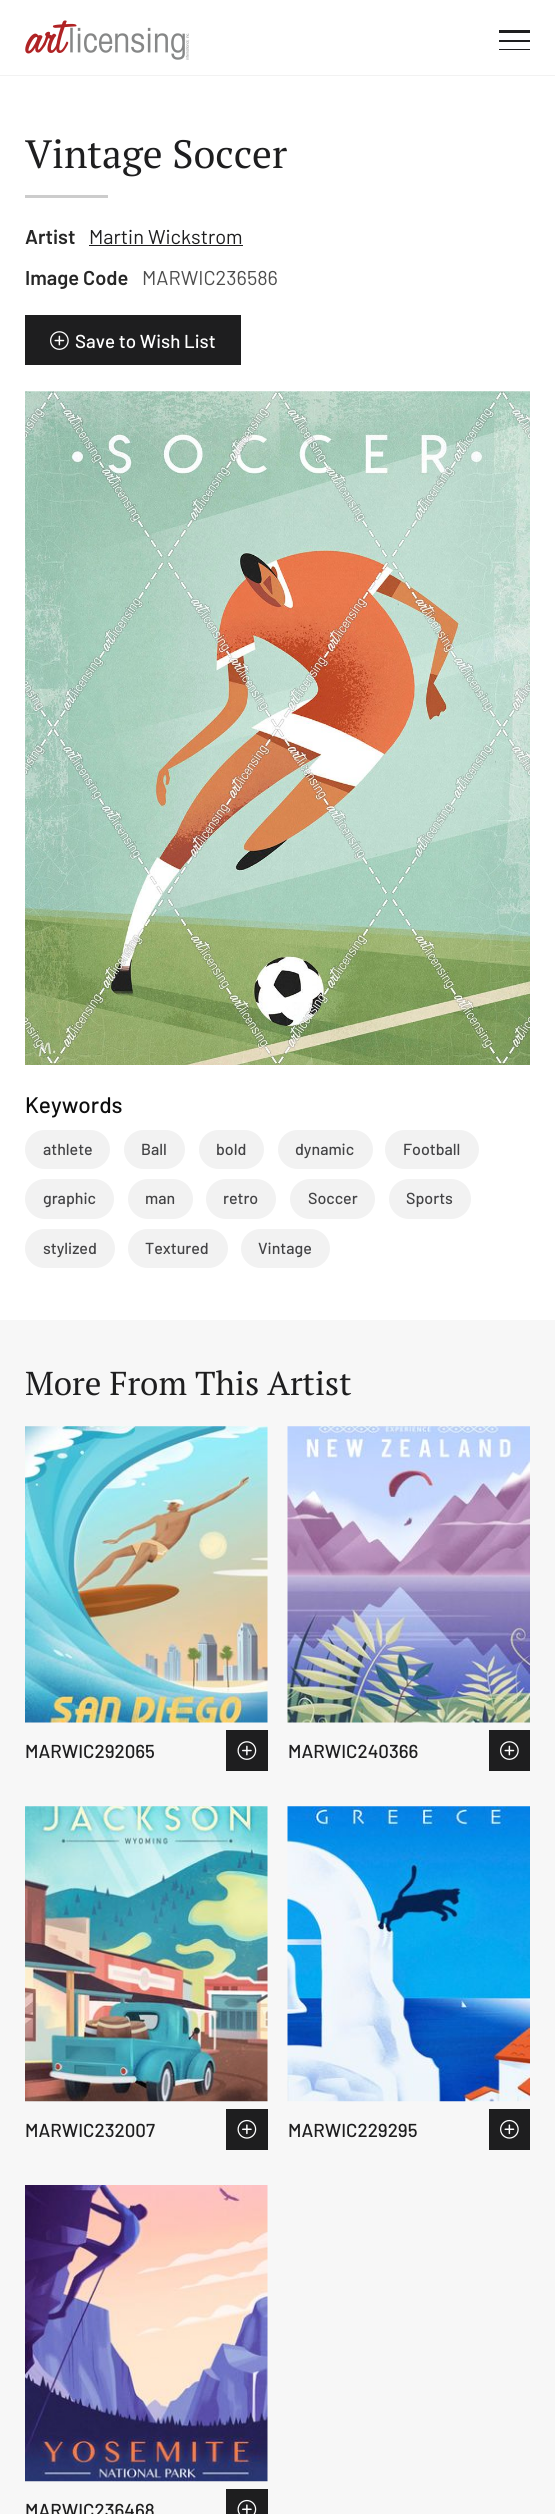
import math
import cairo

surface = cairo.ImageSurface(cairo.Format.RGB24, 555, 2514)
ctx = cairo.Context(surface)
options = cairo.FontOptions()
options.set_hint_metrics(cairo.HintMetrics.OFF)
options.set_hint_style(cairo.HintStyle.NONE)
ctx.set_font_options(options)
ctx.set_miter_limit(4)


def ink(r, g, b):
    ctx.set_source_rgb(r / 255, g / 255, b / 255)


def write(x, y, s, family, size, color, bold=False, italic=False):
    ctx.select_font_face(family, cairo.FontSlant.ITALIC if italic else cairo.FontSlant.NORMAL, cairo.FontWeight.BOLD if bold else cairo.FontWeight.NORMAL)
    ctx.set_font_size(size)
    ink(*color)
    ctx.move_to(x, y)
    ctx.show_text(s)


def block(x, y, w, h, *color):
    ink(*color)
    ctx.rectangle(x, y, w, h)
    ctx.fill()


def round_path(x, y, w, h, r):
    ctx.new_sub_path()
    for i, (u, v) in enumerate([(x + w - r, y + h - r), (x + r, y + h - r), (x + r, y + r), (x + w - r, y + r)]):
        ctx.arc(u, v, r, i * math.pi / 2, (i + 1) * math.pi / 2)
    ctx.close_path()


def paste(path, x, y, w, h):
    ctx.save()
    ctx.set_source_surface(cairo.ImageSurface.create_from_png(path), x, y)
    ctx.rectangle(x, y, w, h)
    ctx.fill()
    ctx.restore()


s1 = dict(family="PT Serif", size=39.5, color=(30, 30, 31))
s2 = dict(family="Barlow SemiBold", size=20, color=(38, 38, 38))
s3 = dict(family="Barlow", size=20, color=(30, 30, 31))
s4 = dict(family="Barlow", size=20, color=(77, 77, 77))
s5 = dict(family="Barlow Medium", size=18.75, color=(255, 255, 255))
s6 = dict(family="Barlow Medium", size=22.5, color=(13, 13, 13))
s7 = dict(family="Barlow Medium", size=16, color=(67, 67, 69))
s8 = dict(family="PT Serif", size=33.1, color=(30, 30, 31))
s9 = dict(family="Barlow Medium", size=18.75, color=(30, 30, 31))

ink(255, 255, 255)
ctx.paint()
block(0, 75, 555, 1, 242, 242, 242)
paste("pic1.png", 25, 20, 165, 40)
block(499, 30, 31, 3, 30, 30, 31)
block(499, 40, 31, 2, 30, 30, 31)
block(499, 49, 31, 1, 30, 30, 31)
write(25, 168, "Vintage Soccer", **s1)
block(25, 195, 83, 3, 204, 204, 204)
write(25, 244, "Artist", **s2)
write(89, 244, "Martin Wickstrom", **s3)
block(89, 245, 154, 1, 30, 30, 31)
write(25, 285, "Image Code", **s2)
write(142, 285, "MARWIC236586", **s4)
block(25, 315, 216, 50, 30, 30, 31)
paste("pic2.png", 50, 331, 19, 19)
write(75, 348, "Save to Wish List", **s5)
paste("pic3.png", 25, 391, 505, 674)
write(25, 1113, "Keywords", **s6)
ink(242, 242, 242)
round_path(25, 1130, 85, 39, 19.5)
ctx.fill()
write(43, 1155, "athlete", **s7)
ink(242, 242, 242)
round_path(124, 1130, 61, 39, 19.5)
ctx.fill()
write(141, 1155, "Ball", **s7)
ink(242, 242, 242)
round_path(199, 1130, 65, 39, 19.5)
ctx.fill()
write(216, 1155, "bold", **s7)
ink(242, 242, 242)
round_path(278, 1130, 95, 39, 19.5)
ctx.fill()
write(295, 1155, "dynamic", **s7)
ink(242, 242, 242)
round_path(385, 1130, 94, 39, 19.5)
ctx.fill()
write(403, 1155, "Football", **s7)
ink(242, 242, 242)
round_path(25, 1179, 89, 40, 20)
ctx.fill()
write(43, 1204, "graphic", **s7)
ink(242, 242, 242)
round_path(128, 1179, 65, 40, 20)
ctx.fill()
write(145, 1204, "man", **s7)
ink(242, 242, 242)
round_path(206, 1179, 70, 40, 20)
ctx.fill()
write(223, 1204, "retro", **s7)
ink(242, 242, 242)
round_path(290, 1179, 85, 40, 20)
ctx.fill()
write(308, 1204, "Soccer", **s7)
ink(242, 242, 242)
round_path(389, 1179, 82, 40, 20)
ctx.fill()
write(406, 1204, "Sports", **s7)
ink(242, 242, 242)
round_path(25, 1229, 90, 39, 19.5)
ctx.fill()
write(43, 1254, "stylized", **s7)
ink(242, 242, 242)
round_path(128, 1229, 100, 39, 19.5)
ctx.fill()
write(145, 1254, "Textured", **s7)
ink(242, 242, 242)
round_path(241, 1229, 89, 39, 19.5)
ctx.fill()
write(258, 1254, "Vintage", **s7)
block(0, 1320, 555, 1194, 247, 247, 247)
write(25, 1395, "More From This Artist", **s8)
paste("pic4.png", 25, 1426, 243, 297)
write(25, 1758, "MARWIC292065", **s9)
block(226, 1730, 42, 41, 30, 30, 31)
paste("pic5.png", 237, 1741, 20, 19)
paste("pic6.png", 287, 1426, 243, 297)
write(288, 1758, "MARWIC240366", **s9)
block(489, 1730, 41, 41, 30, 30, 31)
paste("pic2.png", 500, 1741, 19, 19)
paste("pic7.png", 25, 1806, 243, 296)
write(25, 2137, "MARWIC232007", **s9)
block(226, 2109, 42, 41, 30, 30, 31)
paste("pic8.png", 237, 2119, 20, 20)
paste("pic9.png", 287, 1806, 243, 296)
write(288, 2137, "MARWIC229295", **s9)
block(489, 2109, 41, 41, 30, 30, 31)
paste("pic10.png", 500, 2119, 19, 20)
paste("pic11.png", 25, 2185, 243, 297)
write(25, 2517, "MARWIC236468", **s9)
block(226, 2489, 42, 25, 30, 30, 31)
paste("pic12.png", 237, 2499, 20, 15)
surface.write_to_png("screenshot.png")
